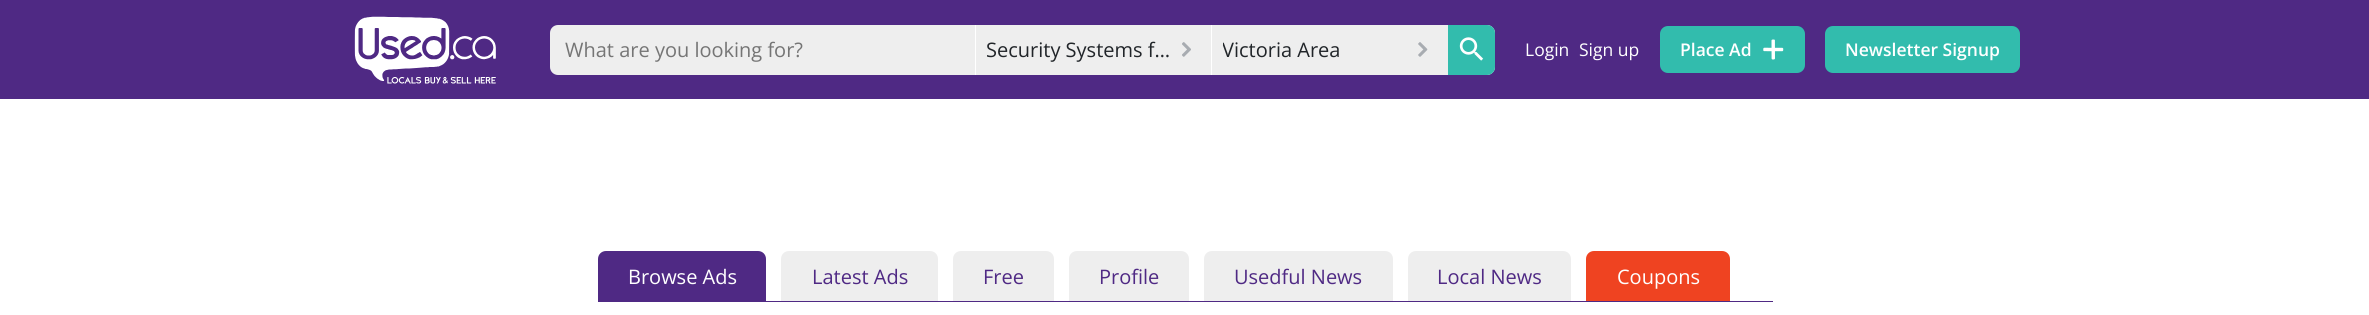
import math
import cairo

surface = cairo.ImageSurface(cairo.Format.RGB24, 2369, 315)
ctx = cairo.Context(surface)
options = cairo.FontOptions()
options.set_hint_metrics(cairo.HintMetrics.OFF)
options.set_hint_style(cairo.HintStyle.NONE)
ctx.set_font_options(options)
ctx.set_miter_limit(4)


def ink(r, g, b):
    ctx.set_source_rgb(r / 255, g / 255, b / 255)


def write(x, y, s, family, size, color, bold=False, italic=False):
    ctx.select_font_face(family, cairo.FontSlant.ITALIC if italic else cairo.FontSlant.NORMAL, cairo.FontWeight.BOLD if bold else cairo.FontWeight.NORMAL)
    ctx.set_font_size(size)
    ink(*color)
    ctx.move_to(x, y)
    ctx.show_text(s)


def block(x, y, w, h, *color):
    ink(*color)
    ctx.rectangle(x, y, w, h)
    ctx.fill()


def round_path(x, y, w, h, r):
    ctx.new_sub_path()
    for i, (u, v) in enumerate([(x + w - r, y + h - r), (x + r, y + h - r), (x + r, y + r), (x + w - r, y + r)]):
        ctx.arc(u, v, r, i * math.pi / 2, (i + 1) * math.pi / 2)
    ctx.close_path()


def paste(path, x, y, w, h):
    ctx.save()
    ctx.set_source_surface(cairo.ImageSurface.create_from_png(path), x, y)
    ctx.rectangle(x, y, w, h)
    ctx.fill()
    ctx.restore()


s1 = dict(family="Open Sans", size=20, color=(117, 117, 117))
s2 = dict(family="Open Sans", size=20, color=(33, 37, 41))
s3 = dict(family="Open Sans", size=17.5, color=(255, 255, 255))
s4 = dict(family="Open Sans SemiBold", size=17.5, color=(255, 255, 255))
s5 = dict(family="Open Sans", size=20, color=(255, 255, 255))
s6 = dict(family="Open Sans", size=20, color=(79, 41, 132))

ink(255, 255, 255)
ctx.paint()
block(0, 0, 2369, 99, 79, 41, 132)
paste("pic1.png", 354, 16, 142, 68)
ink(238, 238, 238)
round_path(550, 25, 945, 50, 8)
ctx.fill()
write(565, 57, "What are you looking for?", **s1)
block(975, 25, 1, 50, 255, 255, 255)
write(986, 57, "Security Systems f…", **s2)
paste("pic2.png", 1182, 42, 9, 15)
block(1211, 25, 1, 50, 255, 255, 255)
ctx.save()
ctx.rectangle(1223, 35, 186, 30)
ctx.clip()
write(1222, 57, "Victoria Area", **s2)
ctx.restore()
paste("pic3.png", 1418, 42, 10, 15)
ink(50, 188, 173)
ctx.new_path()
ctx.move_to(1448, 25)
ctx.line_to(1487, 25)
ctx.curve_to(1491.5, 25, 1495, 28.5, 1495, 33)
ctx.line_to(1495, 67)
ctx.curve_to(1495, 71.5, 1491.5, 75, 1487, 75)
ctx.line_to(1448, 75)
ctx.close_path()
ctx.fill()
paste("pic4.png", 1459, 37, 25, 24)
write(1525, 56, "Login", **s3)
write(1579, 56, "Sign up", **s3)
ink(50, 188, 173)
round_path(1660, 26, 145, 47, 8)
ctx.fill()
write(1680, 56, "Place Ad", **s4)
paste("pic5.png", 1763, 39, 21, 21)
ink(50, 188, 173)
round_path(1825, 26, 195, 47, 8)
ctx.fill()
write(1845, 56, "Newsletter Signup", **s4)
block(598, 301, 1175, 1, 79, 41, 132)
ctx.new_path()
ctx.move_to(606, 251)
ctx.line_to(758, 251)
ctx.curve_to(762.5, 251, 766, 254.5, 766, 259)
ctx.line_to(766, 301)
ctx.line_to(598, 301)
ctx.line_to(598, 259)
ctx.curve_to(598, 254.5, 601.5, 251, 606, 251)
ctx.close_path()
ctx.fill()
write(628, 284, "Browse Ads", **s5)
ink(238, 238, 238)
ctx.new_path()
ctx.move_to(789, 251)
ctx.line_to(930, 251)
ctx.curve_to(934.5, 251, 938, 254.5, 938, 259)
ctx.line_to(938, 301)
ctx.line_to(781, 301)
ctx.line_to(781, 259)
ctx.curve_to(781, 254.5, 784.5, 251, 789, 251)
ctx.close_path()
ctx.fill()
write(812, 284, "Latest Ads", **s6)
ink(238, 238, 238)
ctx.new_path()
ctx.move_to(961, 251)
ctx.line_to(1046, 251)
ctx.curve_to(1050.5, 251, 1054, 254.5, 1054, 259)
ctx.line_to(1054, 301)
ctx.line_to(953, 301)
ctx.line_to(953, 259)
ctx.curve_to(953, 254.5, 956.5, 251, 961, 251)
ctx.close_path()
ctx.fill()
write(983, 284, "Free", **s6)
ink(238, 238, 238)
ctx.new_path()
ctx.move_to(1077, 251)
ctx.line_to(1181, 251)
ctx.curve_to(1185.5, 251, 1189, 254.5, 1189, 259)
ctx.line_to(1189, 301)
ctx.line_to(1069, 301)
ctx.line_to(1069, 259)
ctx.curve_to(1069, 254.5, 1072.5, 251, 1077, 251)
ctx.close_path()
ctx.fill()
write(1099, 284, "Profile", **s6)
ink(238, 238, 238)
ctx.new_path()
ctx.move_to(1212, 251)
ctx.line_to(1385, 251)
ctx.curve_to(1389.5, 251, 1393, 254.5, 1393, 259)
ctx.line_to(1393, 301)
ctx.line_to(1204, 301)
ctx.line_to(1204, 259)
ctx.curve_to(1204, 254.5, 1207.5, 251, 1212, 251)
ctx.close_path()
ctx.fill()
write(1234, 284, "Usedful News", **s6)
ink(238, 238, 238)
ctx.new_path()
ctx.move_to(1416, 251)
ctx.line_to(1563, 251)
ctx.curve_to(1567.5, 251, 1571, 254.5, 1571, 259)
ctx.line_to(1571, 301)
ctx.line_to(1408, 301)
ctx.line_to(1408, 259)
ctx.curve_to(1408, 254.5, 1411.5, 251, 1416, 251)
ctx.close_path()
ctx.fill()
write(1437, 284, "Local News", **s6)
ink(239, 67, 33)
ctx.new_path()
ctx.move_to(1594, 251)
ctx.line_to(1722, 251)
ctx.curve_to(1726.5, 251, 1730, 254.5, 1730, 259)
ctx.line_to(1730, 301)
ctx.line_to(1586, 301)
ctx.line_to(1586, 259)
ctx.curve_to(1586, 254.5, 1589.5, 251, 1594, 251)
ctx.close_path()
ctx.fill()
write(1617, 284, "Coupons", **s5)
surface.write_to_png("screenshot.png")
